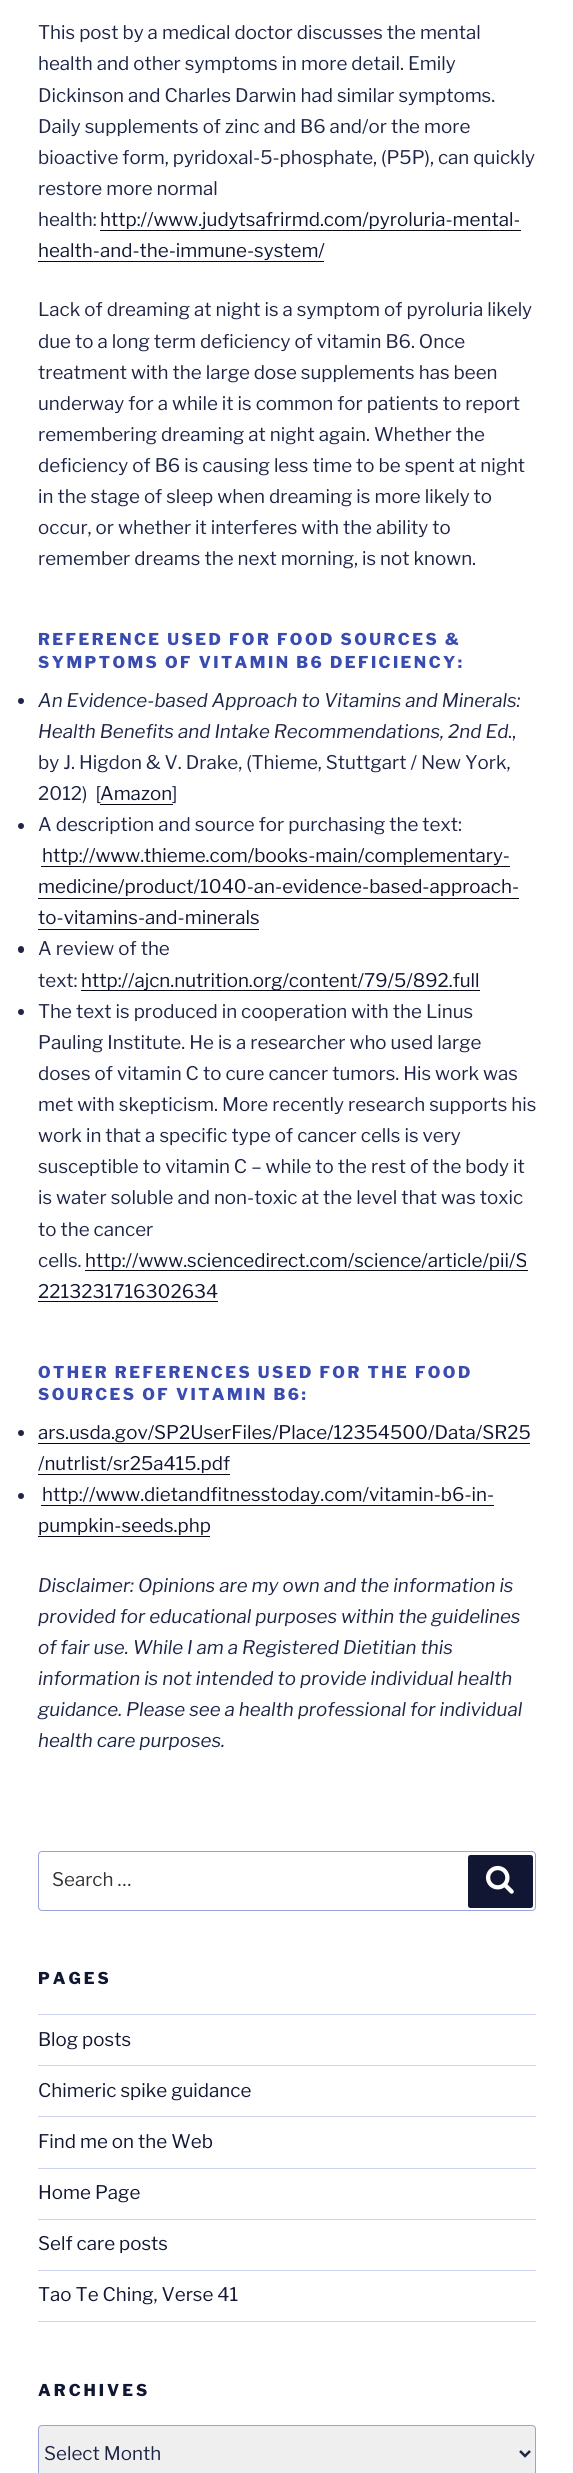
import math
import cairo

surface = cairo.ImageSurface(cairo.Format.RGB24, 573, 2473)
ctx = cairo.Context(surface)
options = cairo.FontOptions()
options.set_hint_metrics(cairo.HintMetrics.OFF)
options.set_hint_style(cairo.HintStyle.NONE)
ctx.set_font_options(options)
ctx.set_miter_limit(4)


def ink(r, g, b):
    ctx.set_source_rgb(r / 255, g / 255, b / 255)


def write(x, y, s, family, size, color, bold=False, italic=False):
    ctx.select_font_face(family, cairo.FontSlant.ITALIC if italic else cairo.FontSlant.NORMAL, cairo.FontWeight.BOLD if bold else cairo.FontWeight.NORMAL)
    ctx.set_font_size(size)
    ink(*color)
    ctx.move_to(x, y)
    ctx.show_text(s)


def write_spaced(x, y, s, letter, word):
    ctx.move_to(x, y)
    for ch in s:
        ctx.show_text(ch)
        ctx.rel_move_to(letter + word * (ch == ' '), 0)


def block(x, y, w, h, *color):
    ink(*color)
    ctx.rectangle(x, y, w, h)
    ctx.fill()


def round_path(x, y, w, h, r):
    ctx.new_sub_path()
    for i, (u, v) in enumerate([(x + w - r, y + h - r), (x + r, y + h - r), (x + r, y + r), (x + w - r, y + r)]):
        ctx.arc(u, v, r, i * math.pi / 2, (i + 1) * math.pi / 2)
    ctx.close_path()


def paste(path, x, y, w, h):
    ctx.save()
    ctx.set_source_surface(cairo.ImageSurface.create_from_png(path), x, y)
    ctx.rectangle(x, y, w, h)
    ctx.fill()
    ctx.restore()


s1 = dict(family="Libre Franklin Thin", size=18.75, color=(31, 37, 71))
s2 = dict(family="Libre Franklin Thin", size=18.75, color=(17, 22, 50))
s3 = dict(family="Libre Franklin Thin", size=18.75, color=(31, 37, 71), italic=True)
s4 = dict(family="Libre Franklin Thin", size=18.75, color=(51, 51, 51))

ink(255, 255, 255)
ctx.paint()
write(38, 39, "This post by a medical doctor discusses the mental", **s1)
write(38, 70, "health and other symptoms in more detail. Emily", **s1)
write(38, 102, "Dickinson and Charles Darwin had similar symptoms.", **s1)
write(38, 133, "Daily supplements of zinc and B6 and/or the more", **s1)
write(38, 164, "bioactive form, pyridoxal-5-phosphate, (P5P), can quickly", **s1)
write(38, 195, "restore more normal", **s1)
write(38, 226, "health:", **s1)
write(100, 226, "http://www.judytsafrirmd.com/pyroluria-mental-", **s2)
block(100, 230, 421, 1, 8, 10, 23)
write(38, 257, "health-and-the-immune-system/", **s2)
block(38, 261, 286, 1, 8, 10, 23)
write(38, 316, "Lack of dreaming at night is a symptom of pyroluria likely", **s1)
write(38, 348, "due to a long term deficiency of vitamin B6. Once", **s1)
write(38, 379, "treatment with the large dose supplements has been", **s1)
write(38, 410, "underway for a while it is common for patients to report", **s1)
write(38, 441, "remembering dreaming at night again. Whether the", **s1)
write(38, 472, "deficiency of B6 is causing less time to be spent at night", **s1)
write(38, 503, "in the stage of sleep when dreaming is more likely to", **s1)
write(38, 534, "occur, or whether it interferes with the ability to", **s1)
write(38, 565, "remember dreams the next morning, is not known.", **s1)
ctx.select_font_face("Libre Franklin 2 Thin")
ctx.set_font_size(16.25)
ink(59, 76, 176)
write_spaced(38, 645, "REFERENCE USED FOR FOOD SOURCES &", 2.45, 0)
write_spaced(38, 668, "SYMPTOMS OF VITAMIN B6 DEFICIENCY:", 2.45, 0)
ink(31, 37, 71)
ctx.new_path()
ctx.arc(21, 701, 3, 0, 2 * math.pi)
ctx.fill()
write(38, 707, "An Evidence-based Approach to Vitamins and Minerals:", **s3)
write(38, 738, "Health Benefits and Intake Recommendations, 2nd Ed", **s3)
write(508, 738, ".,", **s1)
write(38, 769, "by J. Higdon & V. Drake, (Thieme, Stuttgart / New York,", **s1)
write(38, 800, "2012)  [", **s1)
write(100, 800, "Amazon", **s2)
block(100, 804, 73, 1, 8, 10, 23)
write(172, 800, "]", **s1)
ctx.new_path()
ctx.arc(21, 826, 3, 0, 2 * math.pi)
ctx.fill()
write(38, 831, "A description and source for purchasing the text:", **s1)
write(42, 862, "http://www.thieme.com/books-main/complementary-", **s2)
block(41, 866, 469, 1, 8, 10, 23)
write(38, 893, "medicine/product/1040-an-evidence-based-approach-", **s2)
block(38, 898, 481, 1, 8, 10, 23)
write(38, 924, "to-vitamins-and-minerals", **s2)
block(38, 929, 221, 1, 8, 10, 23)
ink(31, 37, 71)
round_path(18, 946, 6, 7, 3)
ctx.fill()
write(38, 955, "A review of the", **s1)
write(38, 987, "text:", **s1)
block(81, 990, 399, 1, 8, 10, 23)
write(81, 987, "http://ajcn.nutrition.org/content/79/5/892.full", **s2)
ink(31, 37, 71)
ctx.new_path()
ctx.arc(21, 1012, 3, 0, 2 * math.pi)
ctx.fill()
write(38, 1018, "The text is produced in cooperation with the Linus", **s1)
write(38, 1049, "Pauling Institute. He is a researcher who used large", **s1)
write(38, 1080, "doses of vitamin C to cure cancer tumors. His work was", **s1)
write(38, 1111, "met with skepticism. More recently research supports his", **s1)
write(38, 1142, "work in that a specific type of cancer cells is very", **s1)
write(38, 1173, "susceptible to vitamin C – while to the rest of the body it", **s1)
write(38, 1204, "is water soluble and non-toxic at the level that was toxic", **s1)
write(38, 1236, "to the cancer", **s1)
write(38, 1267, "cells.", **s1)
block(85, 1270, 443, 1, 8, 10, 23)
write(85, 1267, "http://www.sciencedirect.com/science/article/pii/S", **s2)
write(38, 1298, "2213231716302634", **s2)
block(38, 1301, 180, 1, 8, 10, 23)
ctx.select_font_face("Libre Franklin 2 Thin")
ctx.set_font_size(16.25)
ink(59, 76, 176)
write_spaced(38, 1378, "OTHER REFERENCES USED FOR THE FOOD", 2.45, 0)
write_spaced(38, 1400, "SOURCES OF VITAMIN B6:", 2.45, 0)
ink(31, 37, 71)
ctx.new_path()
ctx.arc(21, 1433, 3, 0, 2 * math.pi)
ctx.fill()
write(38, 1439, "ars.usda.gov/SP2UserFiles/Place/12354500/Data/SR25", **s2)
block(38, 1443, 492, 1, 8, 10, 23)
write(38, 1470, "/nutrlist/sr25a415.pdf", **s2)
block(38, 1474, 192, 1, 8, 10, 23)
ink(31, 37, 71)
ctx.new_path()
ctx.arc(21, 1496, 3, 0, 2 * math.pi)
ctx.fill()
write(42, 1501, "http://www.dietandfitnesstoday.com/vitamin-b6-in-", **s2)
block(41, 1505, 453, 1, 8, 10, 23)
write(38, 1532, "pumpkin-seeds.php", **s2)
block(38, 1536, 172, 1, 8, 10, 23)
write(38, 1592, "Disclaimer: Opinions are my own and the information is", **s3)
write(38, 1623, "provided for educational purposes within the guidelines", **s3)
write(38, 1654, "of fair use. While I am a Registered Dietitian this", **s3)
write(38, 1685, "information is not intended to provide individual health", **s3)
write(38, 1716, "guidance. Please see a health professional for individual", **s3)
write(38, 1747, "health care purposes.", **s3)
round_path(38.5, 1851.5, 497, 59, 3.5)
ink(152, 162, 221)
ctx.set_line_width(1)
ctx.stroke()
write(52, 1886, "Search …", **s4)
ink(17, 22, 50)
round_path(468, 1855, 65, 53, 2.5)
ctx.fill()
paste("pic1.png", 485, 1865, 29, 29)
ctx.select_font_face("Libre Franklin 2 Thin")
ctx.set_font_size(16.25)
write_spaced(38, 1984, "PAGES", 3, 0)
block(38, 2014, 498, 1, 205, 210, 238)
block(38, 2065, 498, 1, 205, 210, 238)
write(38, 2046, "Blog posts", **s2)
block(38, 2116, 498, 1, 205, 210, 238)
write(38, 2097, "Chimeric spike guidance", **s2)
block(38, 2168, 498, 1, 205, 210, 238)
write(38, 2148, "Find me on the Web", **s2)
block(38, 2219, 498, 1, 205, 210, 238)
write(38, 2199, "Home Page", **s2)
block(38, 2270, 498, 1, 205, 210, 238)
write(38, 2250, "Self care posts", **s2)
block(38, 2321, 498, 1, 205, 210, 238)
write(38, 2301, "Tao Te Ching, Verse 41", **s2)
ctx.select_font_face("Libre Franklin 2 Thin")
ctx.set_font_size(16.25)
write_spaced(38, 2396, "ARCHIVES", 3, 0)
ink(239, 239, 239)
round_path(38.5, 2425.5, 497, 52, 3.5)
ctx.fill_preserve()
ink(152, 162, 221)
ctx.stroke()
ctx.new_path()
ctx.move_to(520, 2451)
ctx.line_to(525, 2456)
ctx.line_to(530, 2451)
ink(31, 37, 71)
ctx.set_line_width(2.5)
ctx.stroke()
write(44, 2460, "Select Month", **s1)
surface.write_to_png("screenshot.png")
